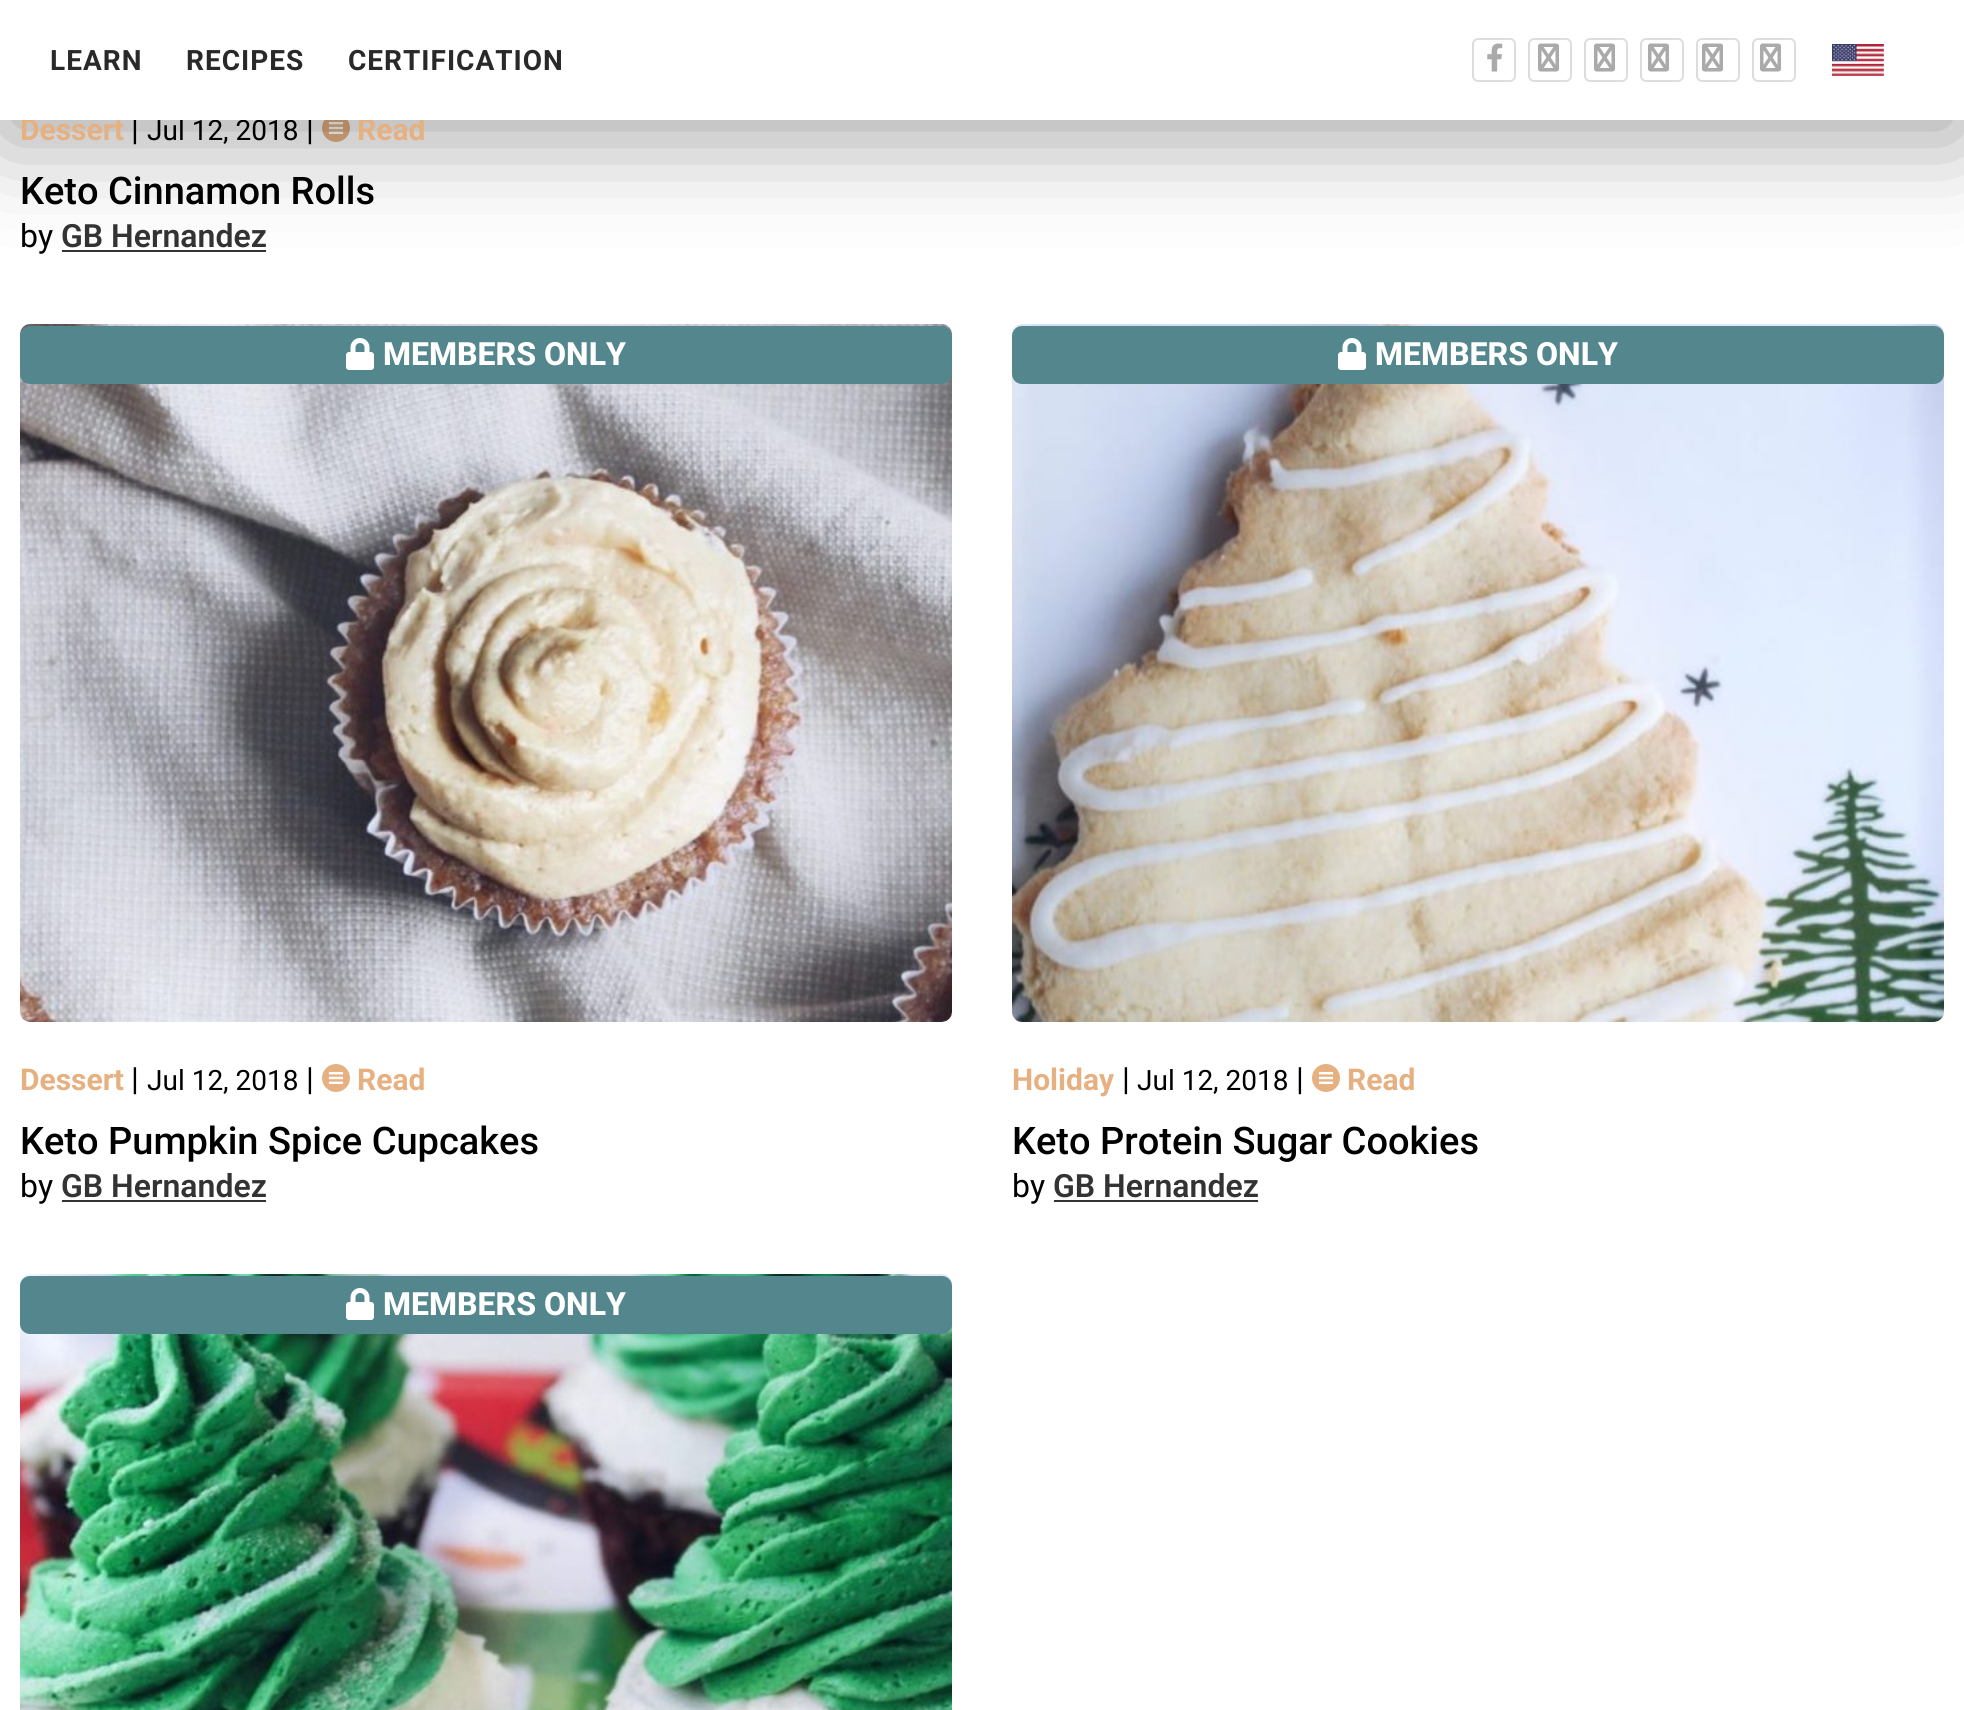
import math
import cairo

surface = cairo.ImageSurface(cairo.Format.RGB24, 1964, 1710)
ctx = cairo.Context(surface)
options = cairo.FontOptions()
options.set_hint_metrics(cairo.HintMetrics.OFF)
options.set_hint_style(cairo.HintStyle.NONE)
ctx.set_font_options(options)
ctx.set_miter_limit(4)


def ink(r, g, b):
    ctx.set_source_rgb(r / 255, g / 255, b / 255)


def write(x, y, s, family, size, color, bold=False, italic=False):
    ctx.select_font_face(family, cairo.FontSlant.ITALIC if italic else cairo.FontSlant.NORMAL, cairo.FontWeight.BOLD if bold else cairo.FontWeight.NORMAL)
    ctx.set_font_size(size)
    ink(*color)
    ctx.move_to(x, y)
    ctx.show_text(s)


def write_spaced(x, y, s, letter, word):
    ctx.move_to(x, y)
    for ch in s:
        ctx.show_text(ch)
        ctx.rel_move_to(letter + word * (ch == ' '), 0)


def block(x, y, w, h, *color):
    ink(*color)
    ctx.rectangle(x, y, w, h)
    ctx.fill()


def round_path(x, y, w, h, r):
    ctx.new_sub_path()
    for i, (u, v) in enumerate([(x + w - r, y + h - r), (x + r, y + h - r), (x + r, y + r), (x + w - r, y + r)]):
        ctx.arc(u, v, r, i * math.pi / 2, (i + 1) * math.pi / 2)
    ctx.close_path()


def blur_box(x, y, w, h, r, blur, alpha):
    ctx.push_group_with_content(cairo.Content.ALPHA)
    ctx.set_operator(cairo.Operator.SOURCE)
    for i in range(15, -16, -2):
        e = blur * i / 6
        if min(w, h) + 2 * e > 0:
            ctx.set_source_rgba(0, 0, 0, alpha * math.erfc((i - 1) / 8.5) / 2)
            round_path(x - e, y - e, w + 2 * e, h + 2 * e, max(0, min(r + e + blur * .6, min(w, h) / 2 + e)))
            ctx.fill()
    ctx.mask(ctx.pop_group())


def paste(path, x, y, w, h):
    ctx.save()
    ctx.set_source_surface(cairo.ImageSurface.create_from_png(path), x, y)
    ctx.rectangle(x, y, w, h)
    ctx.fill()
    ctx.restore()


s1 = dict(family="Roboto", size=30, color=(230, 176, 129), bold=True)
s2 = dict(family="Roboto", size=32, color=(0, 0, 0))
s3 = dict(family="Roboto", size=28, color=(0, 0, 0))
s4 = dict(family="Roboto Medium", size=38, color=(0, 0, 0))
s5 = dict(family="Roboto SemiBold", size=32, color=(51, 51, 51))
s6 = dict(family="Roboto ExtraBold", size=32, color=(255, 255, 255))

ink(255, 255, 255)
ctx.paint()
paste("pic4.png", 322, 120, 28, 22)
block(62, 250, 204, 2, 51, 51, 51)
ink(0, 0, 0)
blur_box(0, 20, 1964, 120, 0, 50, 0.35)
write(20, 140, "Dessert", **s1)
write(131, 140, "|", **s2)
write(147, 140, "Jul 12, 2018", **s3)
write(306, 140, "|", **s2)
write(357, 140, "Read", **s1)
block(0, 0, 1964, 120, 255, 255, 255)
ctx.set_font_size(28)
ink(41, 41, 41)
write_spaced(50, 70, "LEARN", 1, 0)
write_spaced(186, 70, "RECIPES", 1, 0)
write_spaced(348, 70, "CERTIFICATION", 1, 0)
round_path(1473, 39, 42, 42, 5)
ink(221, 221, 221)
ctx.stroke()
paste("pic1.png", 1487, 43, 16, 29)
round_path(1529, 39, 42, 42, 5)
ctx.stroke()
paste("pic2.png", 1538, 43, 21, 29)
round_path(1585, 39, 42, 42, 5)
ctx.stroke()
paste("pic2.png", 1594, 43, 21, 29)
round_path(1641, 39, 42, 42, 5)
ctx.stroke()
paste("pic2.png", 1648, 43, 21, 29)
round_path(1697, 39, 42, 42, 5)
ctx.stroke()
paste("pic2.png", 1702, 43, 21, 29)
round_path(1753, 39, 42, 42, 5)
ctx.stroke()
paste("pic2.png", 1760, 43, 21, 29)
paste("pic3.png", 1832, 44, 52, 32)
write(20, 204, "Keto Cinnamon Rolls", **s4)
write(20, 247, "by", **s2)
write(61, 247, "GB Hernandez", **s5)
paste("pic5.png", 20, 324, 932, 698)
ink(83, 135, 141)
round_path(20, 326, 932, 58, 10)
ctx.fill()
paste("pic6.png", 346, 338, 28, 32)
write(383, 365, "MEMBERS ONLY", **s6)
write(20, 1090, "Dessert", **s1)
write(131, 1090, "|", **s2)
write(147, 1090, "Jul 12, 2018", **s3)
write(306, 1090, "|", **s2)
paste("pic7.png", 322, 1064, 28, 28)
write(357, 1090, "Read", **s1)
write(20, 1154, "Keto Pumpkin Spice Cupcakes", **s4)
write(20, 1197, "by", **s2)
write(61, 1197, "GB Hernandez", **s5)
block(62, 1200, 204, 2, 51, 51, 51)
paste("pic8.png", 1012, 324, 932, 698)
ink(83, 135, 141)
round_path(1012, 326, 932, 58, 10)
ctx.fill()
paste("pic6.png", 1338, 338, 28, 32)
write(1375, 365, "MEMBERS ONLY", **s6)
write(1012, 1090, "Holiday", **s1)
write(1122, 1090, "|", **s2)
write(1137, 1090, "Jul 12, 2018", **s3)
write(1296, 1090, "|", **s2)
paste("pic7.png", 1312, 1064, 28, 28)
write(1347, 1090, "Read", **s1)
write(1012, 1154, "Keto Protein Sugar Cookies", **s4)
write(1012, 1197, "by", **s2)
write(1053, 1197, "GB Hernandez", **s5)
block(1054, 1200, 204, 2, 51, 51, 51)
paste("pic9.png", 20, 1274, 932, 436)
ink(83, 135, 141)
round_path(20, 1276, 932, 58, 10)
ctx.fill()
paste("pic6.png", 346, 1288, 28, 32)
write(383, 1315, "MEMBERS ONLY", **s6)
surface.write_to_png("screenshot.png")
